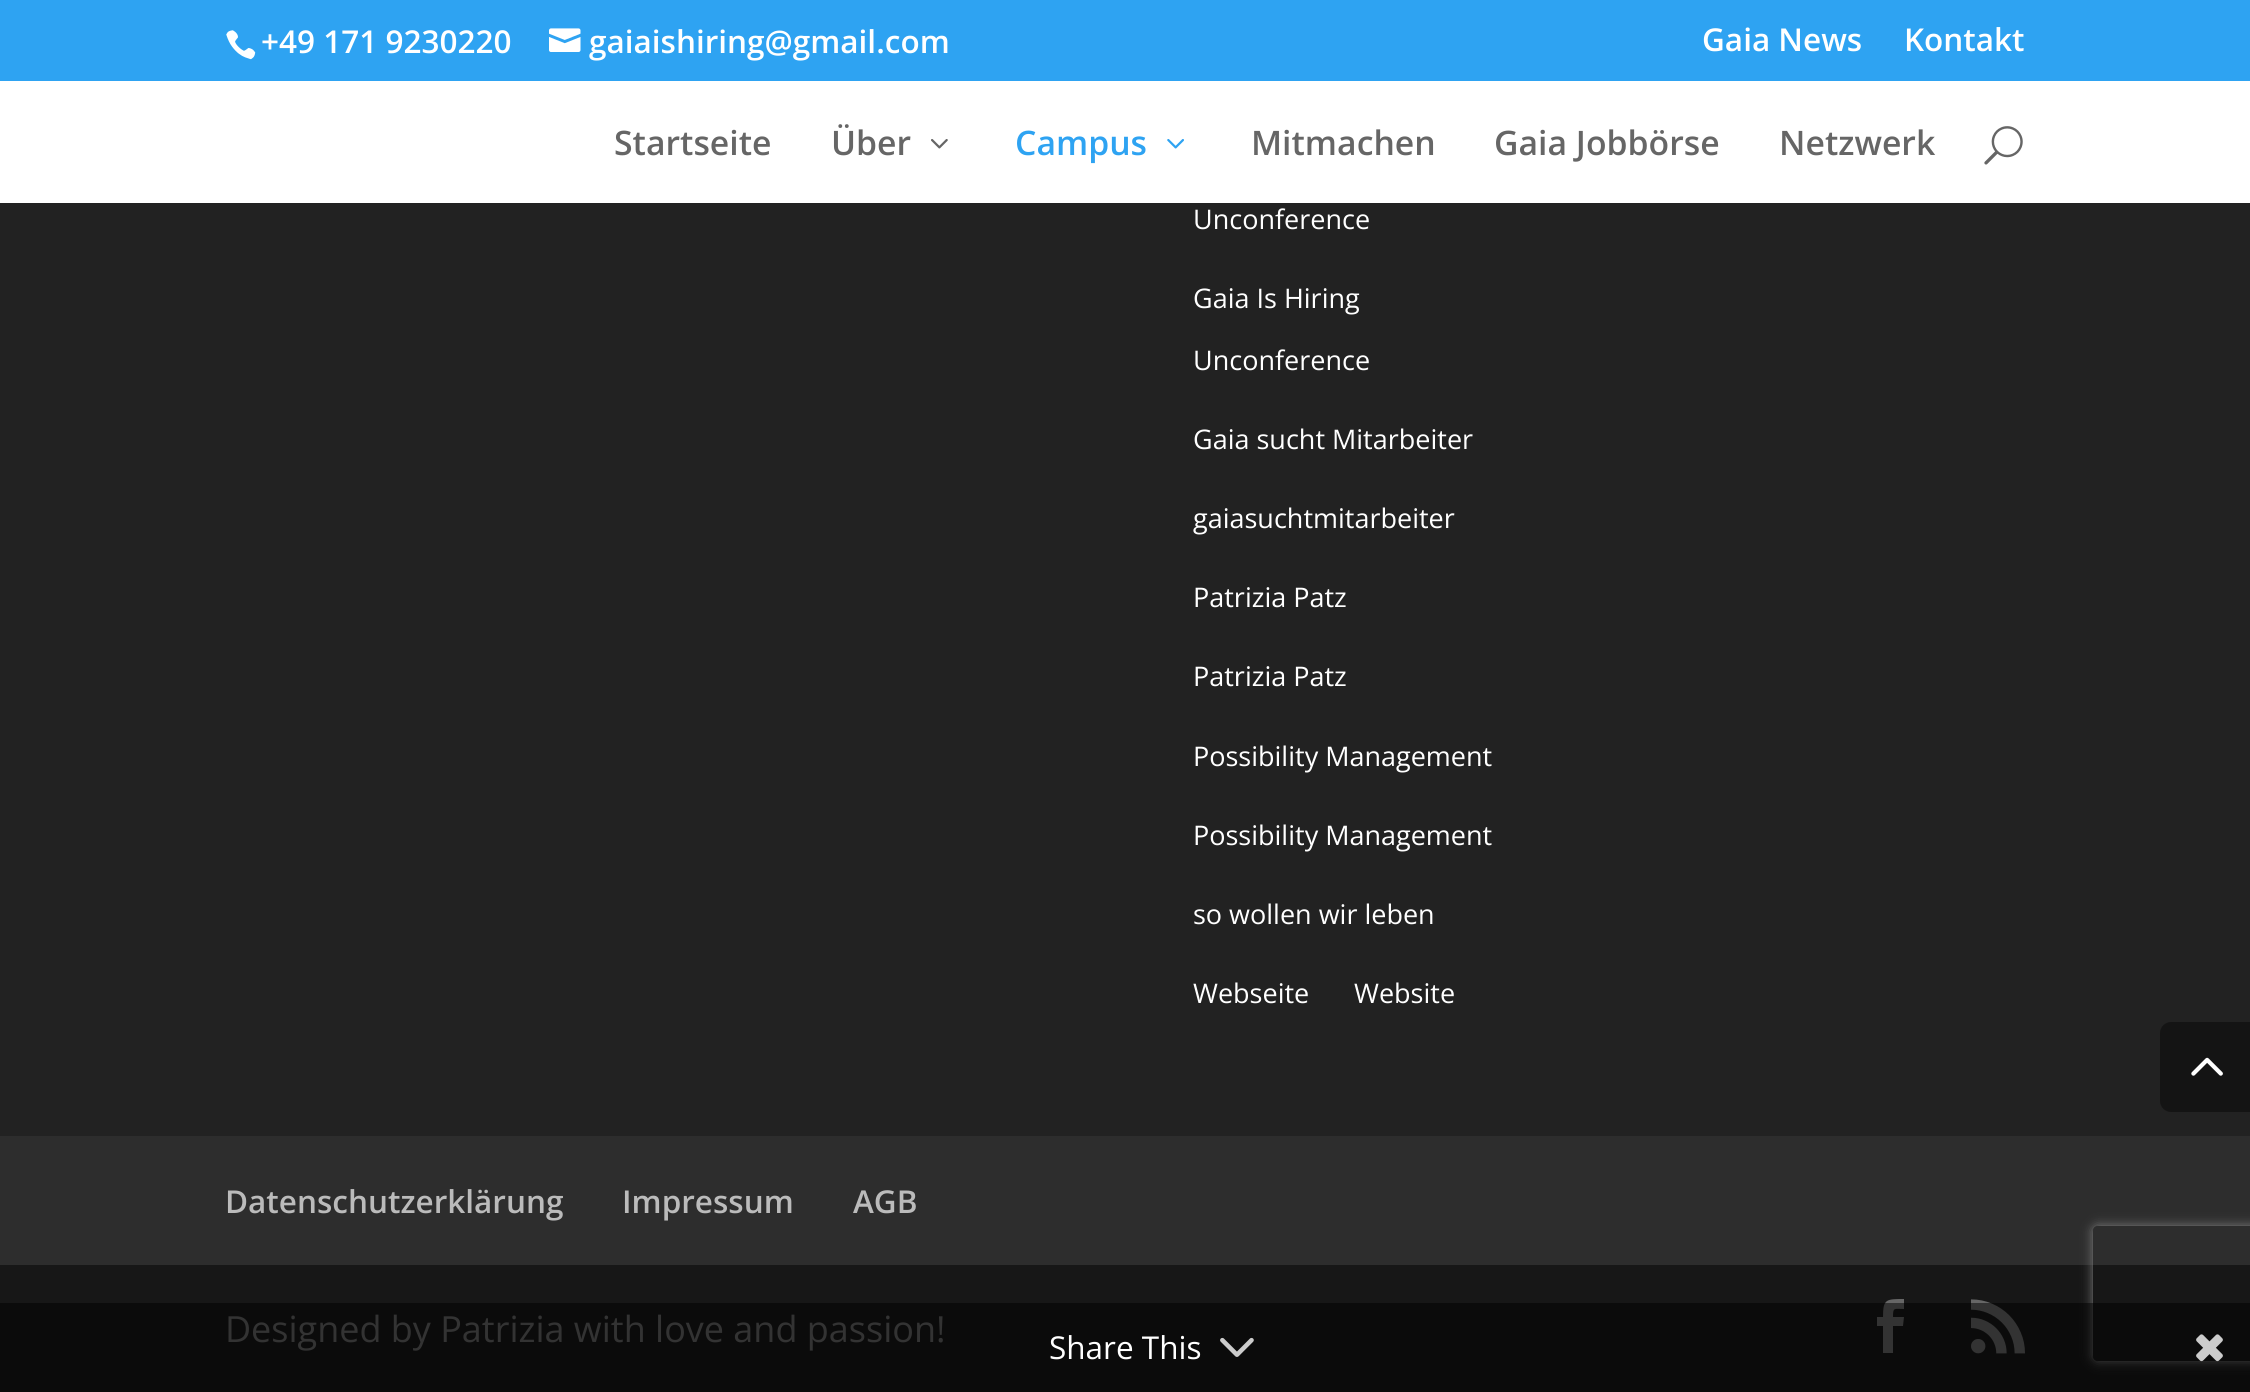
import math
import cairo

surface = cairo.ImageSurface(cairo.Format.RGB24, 2250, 1392)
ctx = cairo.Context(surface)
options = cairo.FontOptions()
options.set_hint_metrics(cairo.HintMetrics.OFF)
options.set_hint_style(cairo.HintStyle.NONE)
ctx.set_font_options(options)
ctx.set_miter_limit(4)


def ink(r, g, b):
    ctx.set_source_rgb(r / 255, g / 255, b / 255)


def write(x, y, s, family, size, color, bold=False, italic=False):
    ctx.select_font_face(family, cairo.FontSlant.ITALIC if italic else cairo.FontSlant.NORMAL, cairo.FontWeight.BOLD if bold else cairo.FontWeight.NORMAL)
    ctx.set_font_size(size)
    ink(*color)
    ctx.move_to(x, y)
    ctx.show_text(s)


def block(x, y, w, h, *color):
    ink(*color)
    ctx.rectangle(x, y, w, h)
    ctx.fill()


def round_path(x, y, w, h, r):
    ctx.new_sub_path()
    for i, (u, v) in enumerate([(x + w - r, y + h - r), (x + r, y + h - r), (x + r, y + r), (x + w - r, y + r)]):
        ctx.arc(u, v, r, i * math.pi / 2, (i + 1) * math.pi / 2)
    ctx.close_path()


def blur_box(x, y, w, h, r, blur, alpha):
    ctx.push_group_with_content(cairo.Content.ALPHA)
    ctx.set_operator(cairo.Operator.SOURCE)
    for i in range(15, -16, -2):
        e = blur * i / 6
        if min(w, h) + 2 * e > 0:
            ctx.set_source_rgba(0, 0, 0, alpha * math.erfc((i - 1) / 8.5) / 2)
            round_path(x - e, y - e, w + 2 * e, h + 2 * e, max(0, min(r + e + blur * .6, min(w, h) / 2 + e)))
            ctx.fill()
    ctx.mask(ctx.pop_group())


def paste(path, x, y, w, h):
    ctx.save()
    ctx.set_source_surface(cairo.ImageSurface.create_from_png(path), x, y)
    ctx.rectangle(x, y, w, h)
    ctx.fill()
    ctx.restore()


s1 = dict(family="Open Sans SemiBold", size=31.5, color=(255, 255, 255))
s2 = dict(family="Open Sans SemiBold", size=33.75, color=(102, 102, 102))
s3 = dict(family="Open Sans SemiBold", size=33.75, color=(46, 163, 242))
s4 = dict(family="Open Sans", size=27, color=(255, 255, 255))
s5 = dict(family="Open Sans SemiBold", size=31.5, color=(187, 187, 187))
s6 = dict(family="Open Sans", size=36, color=(102, 102, 102))
s7 = dict(family="Open Sans", size=31.5, color=(255, 255, 255))

ink(34, 34, 34)
ctx.paint()
block(0, 0, 2250, 81, 46, 163, 242)
paste("pic1.png", 226, 30, 30, 30)
write(261, 53, "+49 171 9230220", **s1)
paste("pic2.png", 549, 28, 32, 24)
write(589, 53, "gaiaishiring@gmail.com", **s1)
write(1702, 51, "Gaia News", **s1)
write(1904, 51, "Kontakt", **s1)
block(0, 81, 2250, 122, 255, 255, 255)
write(614, 155, "Startseite", **s2)
write(831, 155, "Über", **s2)
paste("pic3.png", 931, 139, 17, 10)
write(1015, 155, "Campus", **s3)
paste("pic4.png", 1167, 139, 17, 10)
write(1251, 155, "Mitmachen", **s2)
write(1494, 155, "Gaia Jobbörse", **s2)
write(1779, 155, "Netzwerk", **s2)
paste("pic5.png", 1984, 126, 39, 39)
write(1193, 229, "Unconference", **s4)
write(1193, 308, "Gaia Is Hiring", **s4)
write(1193, 370, "Unconference", **s4)
write(1193, 449, "Gaia sucht Mitarbeiter", **s4)
write(1193, 528, "gaiasuchtmitarbeiter", **s4)
write(1193, 607, "Patrizia Patz", **s4)
write(1193, 686, "Patrizia Patz", **s4)
write(1193, 766, "Possibility Management", **s4)
write(1193, 845, "Possibility Management", **s4)
write(1193, 924, "so wollen wir leben", **s4)
write(1193, 1003, "Webseite", **s4)
write(1354, 1003, "Website", **s4)
block(0, 1136, 2250, 129, 45, 45, 45)
write(225, 1213, "Datenschutzerklärung", **s5)
write(622, 1213, "Impressum", **s5)
write(853, 1213, "AGB", **s5)
block(0, 1265, 2250, 127, 23, 23, 23)
write(225, 1342, "Designed by Patrizia with love and passion!", **s6)
ctx.new_path()
ctx.move_to(1883, 1353)
ctx.line_to(1893, 1353)
ctx.line_to(1893, 1326)
ctx.line_to(1903, 1326)
ctx.line_to(1904, 1317)
ctx.line_to(1893, 1317)
ctx.curve_to(1893, 1307, 1894, 1309, 1904, 1309)
ctx.line_to(1904, 1299)
ctx.curve_to(1886, 1299, 1883, 1299, 1883, 1317)
ctx.line_to(1877, 1317)
ctx.line_to(1877, 1326)
ctx.line_to(1883, 1326)
ctx.close_path()
ctx.fill()
paste("pic6.png", 1971, 1299, 54, 55)
ink(20, 20, 20)
ctx.new_path()
ctx.move_to(2171, 1022)
ctx.line_to(2250, 1022)
ctx.line_to(2250, 1112)
ctx.line_to(2171, 1112)
ctx.curve_to(2165, 1112, 2160, 1107, 2160, 1101)
ctx.line_to(2160, 1033)
ctx.curve_to(2160, 1027, 2165, 1022, 2171, 1022)
ctx.close_path()
ctx.fill()
paste("pic7.png", 2191, 1057, 32, 19)
ctx.save()
ctx.set_fill_rule(cairo.FillRule.EVEN_ODD)
ctx.new_path()
ctx.move_to(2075, 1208)
ctx.line_to(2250, 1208)
ctx.line_to(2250, 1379)
ctx.line_to(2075, 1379)
ctx.close_path()
ctx.move_to(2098, 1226)
ctx.line_to(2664, 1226)
ctx.curve_to(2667, 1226, 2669, 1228, 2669, 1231)
ctx.line_to(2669, 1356)
ctx.curve_to(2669, 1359, 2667, 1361, 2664, 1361)
ctx.line_to(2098, 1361)
ctx.curve_to(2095, 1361, 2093, 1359, 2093, 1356)
ctx.line_to(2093, 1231)
ctx.curve_to(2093, 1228, 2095, 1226, 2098, 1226)
ctx.close_path()
ctx.clip()
ink(128, 128, 128)
blur_box(2093, 1226, 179, 135, 5, 5.5, 1)
ctx.restore()
ctx.set_source_rgba(0, 0, 0, 0.5)
ctx.rectangle(0, 1303, 2250, 89)
ctx.fill()
write(1049, 1359, "Share This", **s7)
paste("pic8.png", 1220, 1337, 34, 20)
paste("pic9.png", 2196, 1334, 27, 28)
surface.write_to_png("screenshot.png")
